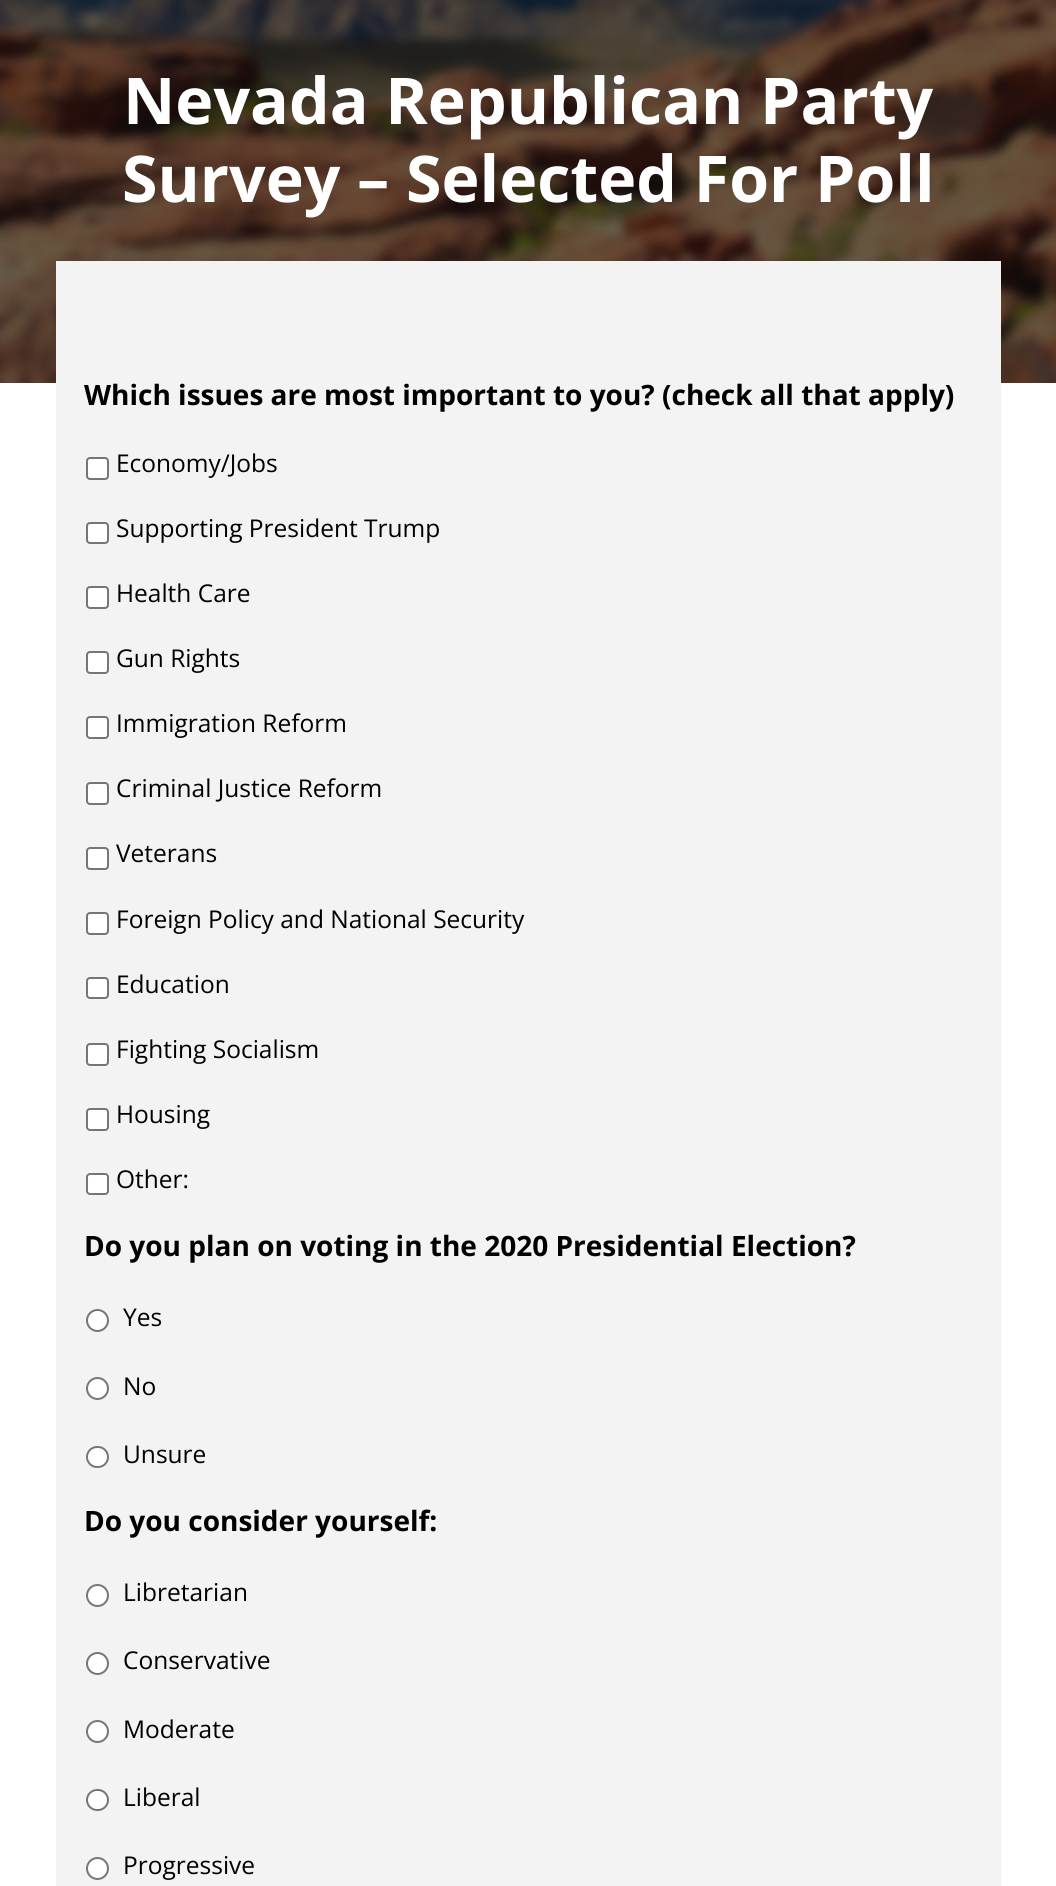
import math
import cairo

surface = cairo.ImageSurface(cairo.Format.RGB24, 1056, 1886)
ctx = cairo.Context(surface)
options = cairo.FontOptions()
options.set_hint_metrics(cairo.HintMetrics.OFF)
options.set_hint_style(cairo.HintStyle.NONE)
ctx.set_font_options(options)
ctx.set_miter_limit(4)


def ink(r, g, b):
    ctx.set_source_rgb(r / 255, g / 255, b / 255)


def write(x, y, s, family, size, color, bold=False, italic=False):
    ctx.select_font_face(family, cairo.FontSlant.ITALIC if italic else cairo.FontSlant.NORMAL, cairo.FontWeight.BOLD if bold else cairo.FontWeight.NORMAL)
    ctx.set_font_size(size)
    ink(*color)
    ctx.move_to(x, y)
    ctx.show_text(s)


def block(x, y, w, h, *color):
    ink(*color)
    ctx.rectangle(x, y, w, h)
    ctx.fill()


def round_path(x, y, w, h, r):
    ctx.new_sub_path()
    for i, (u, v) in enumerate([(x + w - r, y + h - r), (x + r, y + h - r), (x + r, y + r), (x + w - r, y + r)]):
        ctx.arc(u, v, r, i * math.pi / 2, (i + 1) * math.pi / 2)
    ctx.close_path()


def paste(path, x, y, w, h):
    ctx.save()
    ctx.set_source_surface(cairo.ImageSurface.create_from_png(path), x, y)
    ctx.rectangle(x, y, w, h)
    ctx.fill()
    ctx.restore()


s1 = dict(family="Open Sans", size=64.4, color=(255, 255, 255), bold=True)
s2 = dict(family="Open Sans", size=28, color=(0, 0, 0), bold=True)
s3 = dict(family="Open Sans", size=24.5, color=(0, 0, 0))

ink(255, 255, 255)
ctx.paint()
paste("pic1.png", 0, 0, 1056, 383)
write(123, 124, "Nevada Republican Party", **s1)
write(122, 202, "Survey – Selected For Poll", **s1)
block(56, 261, 945, 1625, 243, 243, 243)
write(84, 405, "Which issues are most important to you? (check all that apply)", **s2)
ink(255, 255, 255)
round_path(87, 458, 21, 21, 3)
ctx.fill_preserve()
ink(118, 118, 118)
ctx.stroke()
write(116, 472, "Economy/Jobs", **s3)
ink(255, 255, 255)
round_path(87, 523, 21, 20, 3)
ctx.fill_preserve()
ink(118, 118, 118)
ctx.stroke()
write(116, 537, "Supporting President Trump", **s3)
ink(255, 255, 255)
round_path(87, 587, 21, 21, 3)
ctx.fill_preserve()
ink(118, 118, 118)
ctx.stroke()
write(116, 602, "Health Care", **s3)
ink(255, 255, 255)
round_path(87, 652, 21, 21, 3)
ctx.fill_preserve()
ink(118, 118, 118)
ctx.stroke()
write(116, 667, "Gun Rights", **s3)
ink(255, 255, 255)
round_path(87, 717, 21, 21, 3)
ctx.fill_preserve()
ink(118, 118, 118)
ctx.stroke()
write(116, 732, "Immigration Reform", **s3)
ink(255, 255, 255)
round_path(87, 783, 21, 21, 3)
ctx.fill_preserve()
ink(118, 118, 118)
ctx.stroke()
write(116, 797, "Criminal Justice Reform", **s3)
ink(255, 255, 255)
round_path(87, 848, 21, 21, 3)
ctx.fill_preserve()
ink(118, 118, 118)
ctx.stroke()
write(116, 862, "Veterans", **s3)
ink(255, 255, 255)
round_path(87, 913, 21, 21, 3)
ctx.fill_preserve()
ink(118, 118, 118)
ctx.stroke()
write(116, 928, "Foreign Policy and National Security", **s3)
ink(255, 255, 255)
round_path(87, 978, 21, 20, 3)
ctx.fill_preserve()
ink(118, 118, 118)
ctx.stroke()
write(116, 993, "Education", **s3)
ink(255, 255, 255)
round_path(87, 1044, 21, 21, 3)
ctx.fill_preserve()
ink(118, 118, 118)
ctx.stroke()
write(116, 1058, "Fighting Socialism", **s3)
ink(255, 255, 255)
round_path(87, 1109, 21, 21, 3)
ctx.fill_preserve()
ink(118, 118, 118)
ctx.stroke()
write(116, 1123, "Housing", **s3)
ink(255, 255, 255)
round_path(87, 1174, 21, 20, 3)
ctx.fill_preserve()
ink(118, 118, 118)
ctx.stroke()
write(116, 1188, "Other:", **s3)
write(84, 1256, "Do you plan on voting in the 2020 Presidential Election?", **s2)
ink(255, 255, 255)
ctx.new_path()
ctx.arc(97.5, 1320.5, 10.5, 0, 2 * math.pi)
ctx.fill_preserve()
ink(118, 118, 118)
ctx.stroke()
write(123, 1326, "Yes", **s3)
ink(255, 255, 255)
ctx.new_path()
ctx.arc(97.5, 1388.5, 10.5, 0, 2 * math.pi)
ctx.fill_preserve()
ink(118, 118, 118)
ctx.stroke()
write(123, 1395, "No", **s3)
ink(255, 255, 255)
round_path(87, 1447, 21, 20, 10)
ctx.fill_preserve()
ink(118, 118, 118)
ctx.stroke()
write(123, 1463, "Unsure", **s3)
write(84, 1531, "Do you consider yourself:", **s2)
ink(255, 255, 255)
ctx.new_path()
ctx.arc(97.5, 1595.5, 10.5, 0, 2 * math.pi)
ctx.fill_preserve()
ink(118, 118, 118)
ctx.stroke()
write(123, 1601, "Libretarian", **s3)
ink(255, 255, 255)
ctx.new_path()
ctx.arc(97.5, 1663.5, 10.5, 0, 2 * math.pi)
ctx.fill_preserve()
ink(118, 118, 118)
ctx.stroke()
write(123, 1669, "Conservative", **s3)
ink(255, 255, 255)
ctx.new_path()
ctx.arc(97.5, 1731.5, 10.5, 0, 2 * math.pi)
ctx.fill_preserve()
ink(118, 118, 118)
ctx.stroke()
write(123, 1738, "Moderate", **s3)
ink(255, 255, 255)
round_path(87, 1790, 21, 20, 10)
ctx.fill_preserve()
ink(118, 118, 118)
ctx.stroke()
write(123, 1806, "Liberal", **s3)
ink(255, 255, 255)
ctx.new_path()
ctx.arc(97.5, 1868.5, 10.5, 0, 2 * math.pi)
ctx.fill_preserve()
ink(118, 118, 118)
ctx.stroke()
write(123, 1874, "Progressive", **s3)
surface.write_to_png("screenshot.png")
